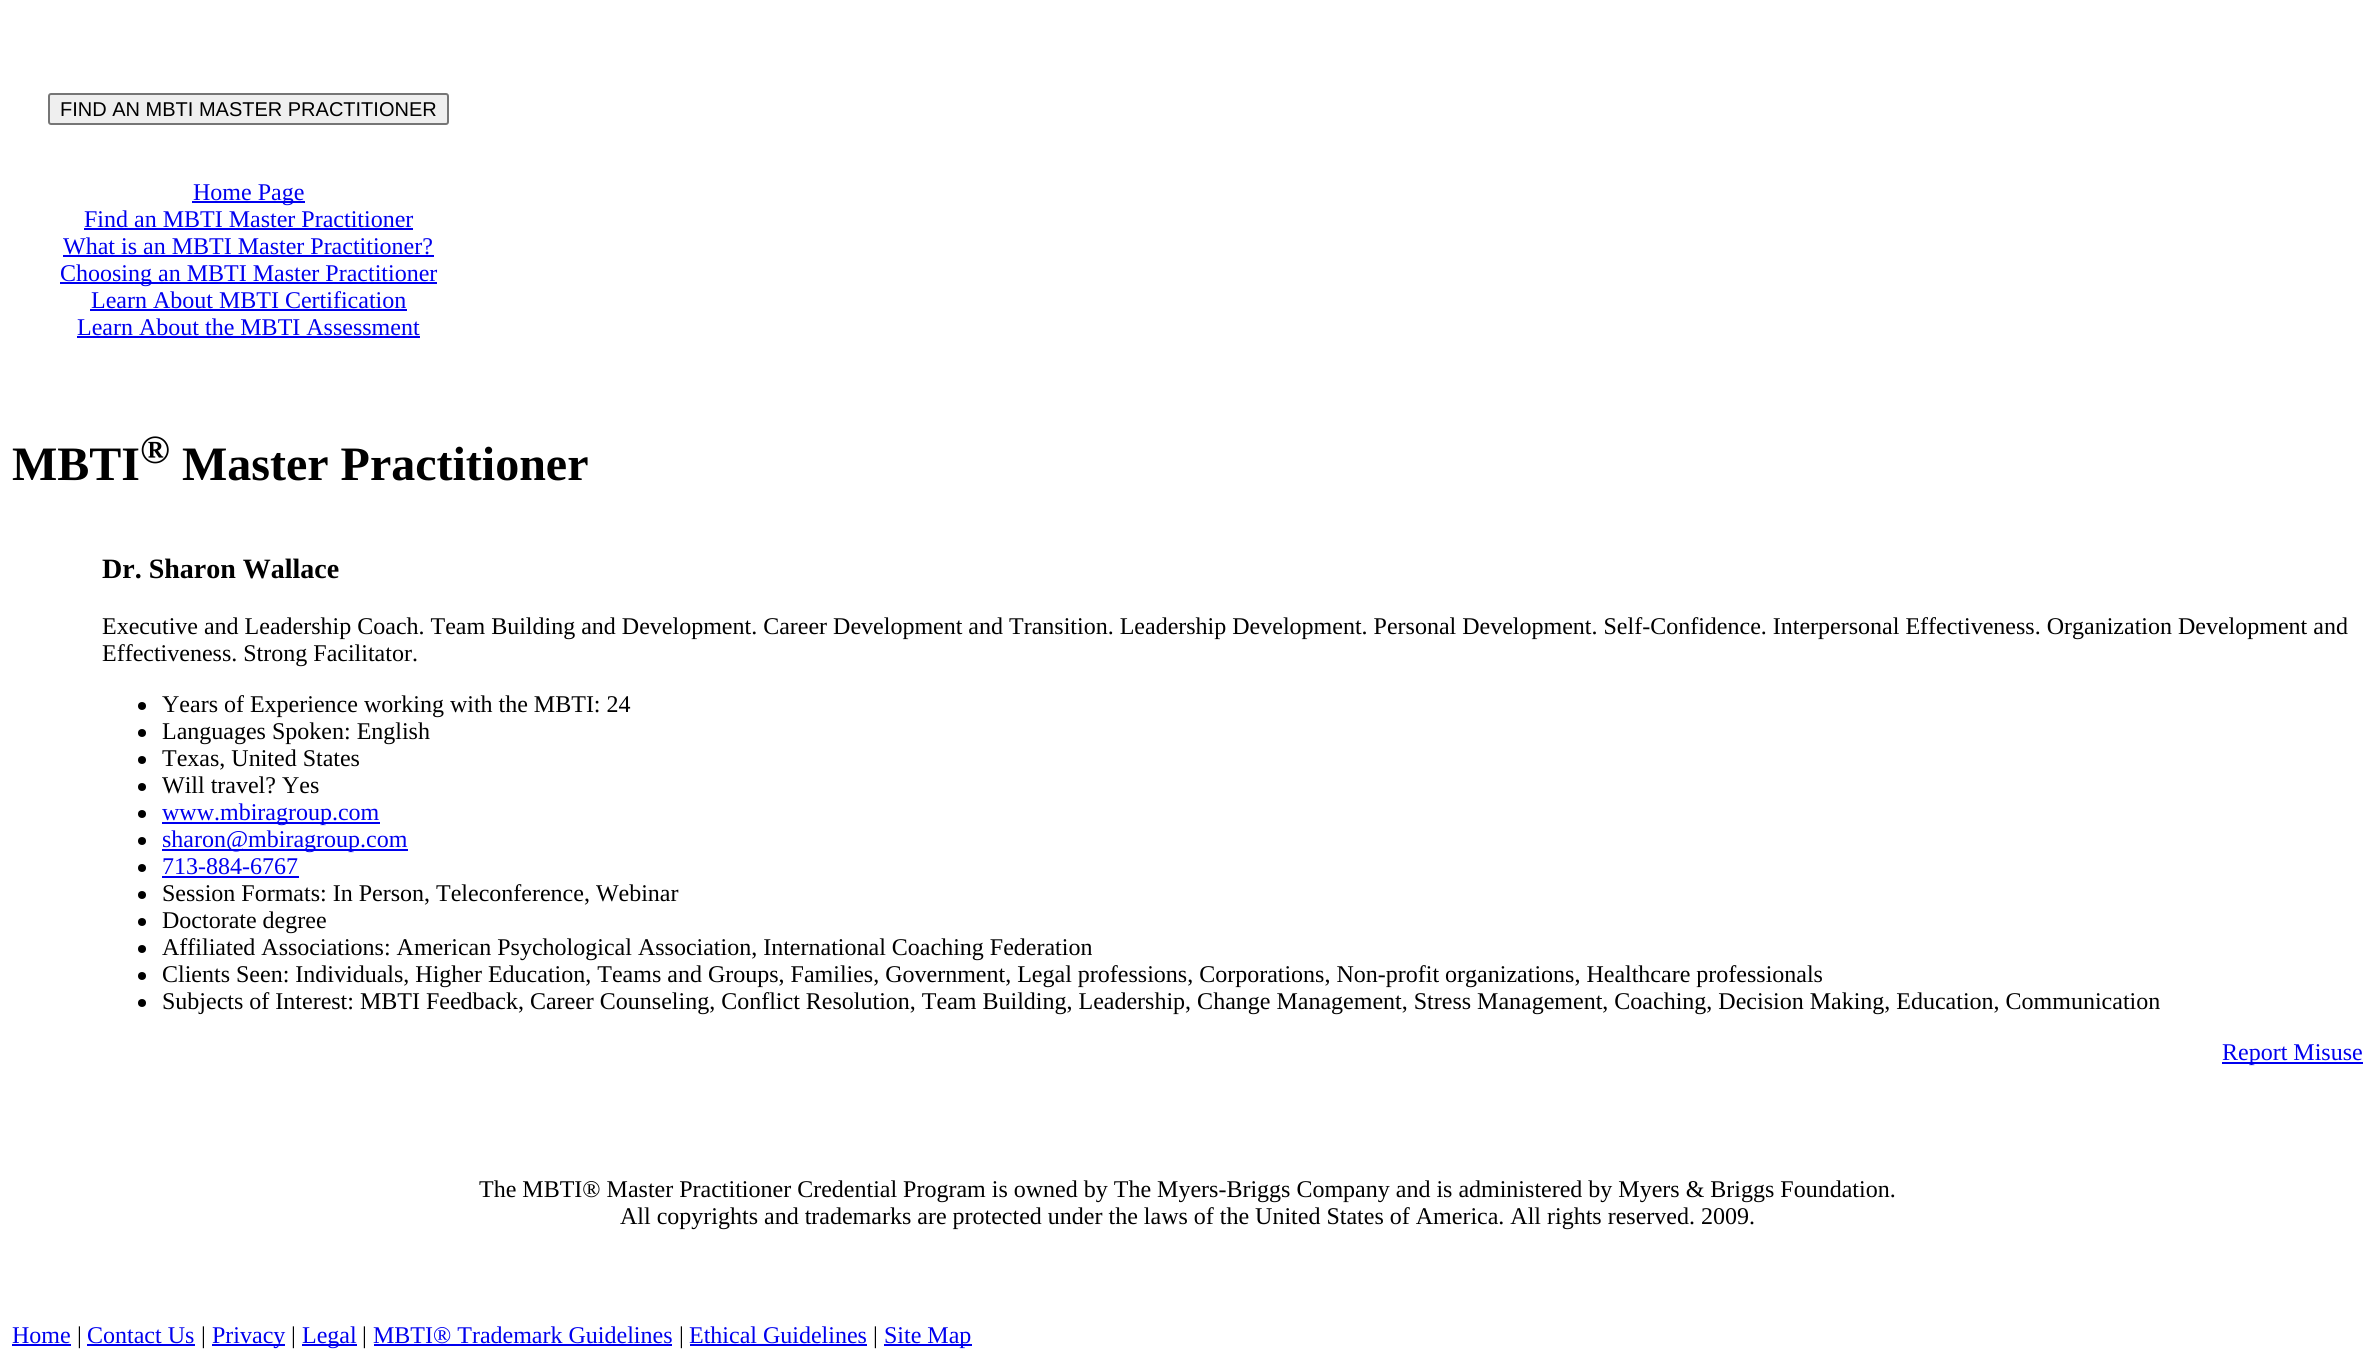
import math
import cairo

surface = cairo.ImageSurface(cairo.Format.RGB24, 2374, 1353)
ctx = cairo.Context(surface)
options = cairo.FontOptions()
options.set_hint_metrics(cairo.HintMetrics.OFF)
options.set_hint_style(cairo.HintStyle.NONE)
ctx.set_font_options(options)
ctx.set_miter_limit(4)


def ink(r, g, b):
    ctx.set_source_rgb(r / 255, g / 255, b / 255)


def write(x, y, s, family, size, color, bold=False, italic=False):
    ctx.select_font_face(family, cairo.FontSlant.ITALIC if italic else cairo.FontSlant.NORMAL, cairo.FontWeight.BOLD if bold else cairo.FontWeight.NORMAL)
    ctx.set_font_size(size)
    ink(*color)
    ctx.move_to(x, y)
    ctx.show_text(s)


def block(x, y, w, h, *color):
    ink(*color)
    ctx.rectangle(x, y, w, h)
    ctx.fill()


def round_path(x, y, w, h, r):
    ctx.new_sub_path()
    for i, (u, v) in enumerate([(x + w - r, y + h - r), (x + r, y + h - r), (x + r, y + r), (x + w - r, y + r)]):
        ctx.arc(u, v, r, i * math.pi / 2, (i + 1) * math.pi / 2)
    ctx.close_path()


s1 = dict(family="Liberation Sans", size=20, color=(0, 0, 0))
s2 = dict(family="Liberation Serif", size=24, color=(0, 0, 238))
s3 = dict(family="Liberation Serif", size=48, color=(0, 0, 0), bold=True)
s4 = dict(family="Liberation Serif", size=40, color=(0, 0, 0), bold=True)
s5 = dict(family="Liberation Serif", size=28, color=(0, 0, 0), bold=True)
s6 = dict(family="Liberation Serif", size=24, color=(0, 0, 0))

ink(255, 255, 255)
ctx.paint()
ink(239, 239, 239)
round_path(49, 94, 399, 30, 2)
ctx.fill_preserve()
ink(118, 118, 118)
ctx.stroke()
write(60, 116, "FIND AN MBTI MASTER PRACTITIONER", **s1)
block(192, 201, 113, 2, 0, 0, 238)
write(193, 200, "Home Page", **s2)
write(84, 227, "Find an MBTI Master Practitioner", **s2)
block(84, 228, 329, 2, 0, 0, 238)
write(63, 254, "What is an MBTI Master Practitioner?", **s2)
block(63, 255, 371, 2, 0, 0, 238)
block(60, 282, 377, 2, 0, 0, 238)
write(60, 281, "Choosing an MBTI Master Practitioner", **s2)
write(91, 308, "Learn About MBTI Certification", **s2)
block(90, 309, 317, 2, 0, 0, 238)
write(77, 335, "Learn About the MBTI Assessment", **s2)
block(77, 336, 343, 2, 0, 0, 238)
write(12, 480, "MBTI", **s3)
write(140, 463, "®", **s4)
write(182, 480, "Master Practitioner", **s3)
write(102, 578, "Dr. Sharon Wallace", **s5)
write(102, 634, "Executive and Leadership Coach. Team Building and Development. Career Development and Transition. Leadership Development. Personal Development. Self-Confidence. Interpersonal Effectiveness. Organization Development and", **s6)
write(102, 661, "Effectiveness. Strong Facilitator.", **s6)
ctx.new_path()
ctx.arc(142, 706, 4, 0, 2 * math.pi)
ctx.fill()
write(162, 712, "Years of Experience working with the MBTI: 24", **s6)
ctx.new_path()
ctx.arc(142, 733, 4, 0, 2 * math.pi)
ctx.fill()
write(162, 739, "Languages Spoken: English", **s6)
ctx.new_path()
ctx.arc(142, 760, 4, 0, 2 * math.pi)
ctx.fill()
write(162, 766, "Texas, United States", **s6)
ctx.new_path()
ctx.arc(142, 787, 4, 0, 2 * math.pi)
ctx.fill()
write(162, 793, "Will travel? Yes", **s6)
ctx.new_path()
ctx.arc(142, 814, 4, 0, 2 * math.pi)
ctx.fill()
block(162, 822, 218, 2, 0, 0, 238)
write(162, 820, "www.mbiragroup.com", **s2)
ink(0, 0, 0)
ctx.new_path()
ctx.arc(142, 841, 4, 0, 2 * math.pi)
ctx.fill()
block(162, 849, 246, 2, 0, 0, 238)
write(162, 847, "sharon@mbiragroup.com", **s2)
ink(0, 0, 0)
ctx.new_path()
ctx.arc(142, 868, 4, 0, 2 * math.pi)
ctx.fill()
write(162, 874, "713-884-6767", **s2)
block(162, 876, 137, 2, 0, 0, 238)
ink(0, 0, 0)
ctx.new_path()
ctx.arc(142, 895, 4, 0, 2 * math.pi)
ctx.fill()
write(162, 901, "Session Formats: In Person, Teleconference, Webinar", **s6)
ctx.new_path()
ctx.arc(142, 922, 4, 0, 2 * math.pi)
ctx.fill()
write(162, 928, "Doctorate degree", **s6)
ctx.new_path()
ctx.arc(142, 949, 4, 0, 2 * math.pi)
ctx.fill()
write(162, 955, "Affiliated Associations: American Psychological Association, International Coaching Federation", **s6)
ctx.new_path()
ctx.arc(142, 976, 4, 0, 2 * math.pi)
ctx.fill()
write(162, 982, "Clients Seen: Individuals, Higher Education, Teams and Groups, Families, Government, Legal professions, Corporations, Non-profit organizations, Healthcare professionals", **s6)
ctx.new_path()
ctx.arc(142, 1003, 4, 0, 2 * math.pi)
ctx.fill()
write(162, 1009, "Subjects of Interest: MBTI Feedback, Career Counseling, Conflict Resolution, Team Building, Leadership, Change Management, Stress Management, Coaching, Decision Making, Education, Communication", **s6)
block(2222, 1062, 141, 2, 0, 0, 238)
write(2222, 1060, "Report Misuse", **s2)
write(479, 1197, "The MBTI® Master Practitioner Credential Program is owned by The Myers-Briggs Company and is administered by Myers & Briggs Foundation.", **s6)
write(620, 1224, "All copyrights and trademarks are protected under the laws of the United States of America. All rights reserved. 2009.", **s6)
write(12, 1343, "Home", **s2)
block(12, 1344, 59, 2, 0, 0, 238)
write(77, 1343, "|", **s6)
write(87, 1343, "Contact Us", **s2)
block(87, 1344, 108, 2, 0, 0, 238)
write(201, 1343, "|", **s6)
block(212, 1344, 73, 2, 0, 0, 238)
write(212, 1343, "Privacy", **s2)
write(291, 1343, "|", **s6)
block(302, 1344, 55, 2, 0, 0, 238)
write(302, 1343, "Legal", **s2)
write(362, 1343, "|", **s6)
write(373, 1343, "MBTI® Trademark Guidelines", **s2)
block(374, 1344, 298, 2, 0, 0, 238)
write(679, 1343, "|", **s6)
write(689, 1343, "Ethical Guidelines", **s2)
block(690, 1344, 177, 2, 0, 0, 238)
write(873, 1343, "|", **s6)
block(884, 1344, 88, 2, 0, 0, 238)
write(884, 1343, "Site Map", **s2)
surface.write_to_png("screenshot.png")
